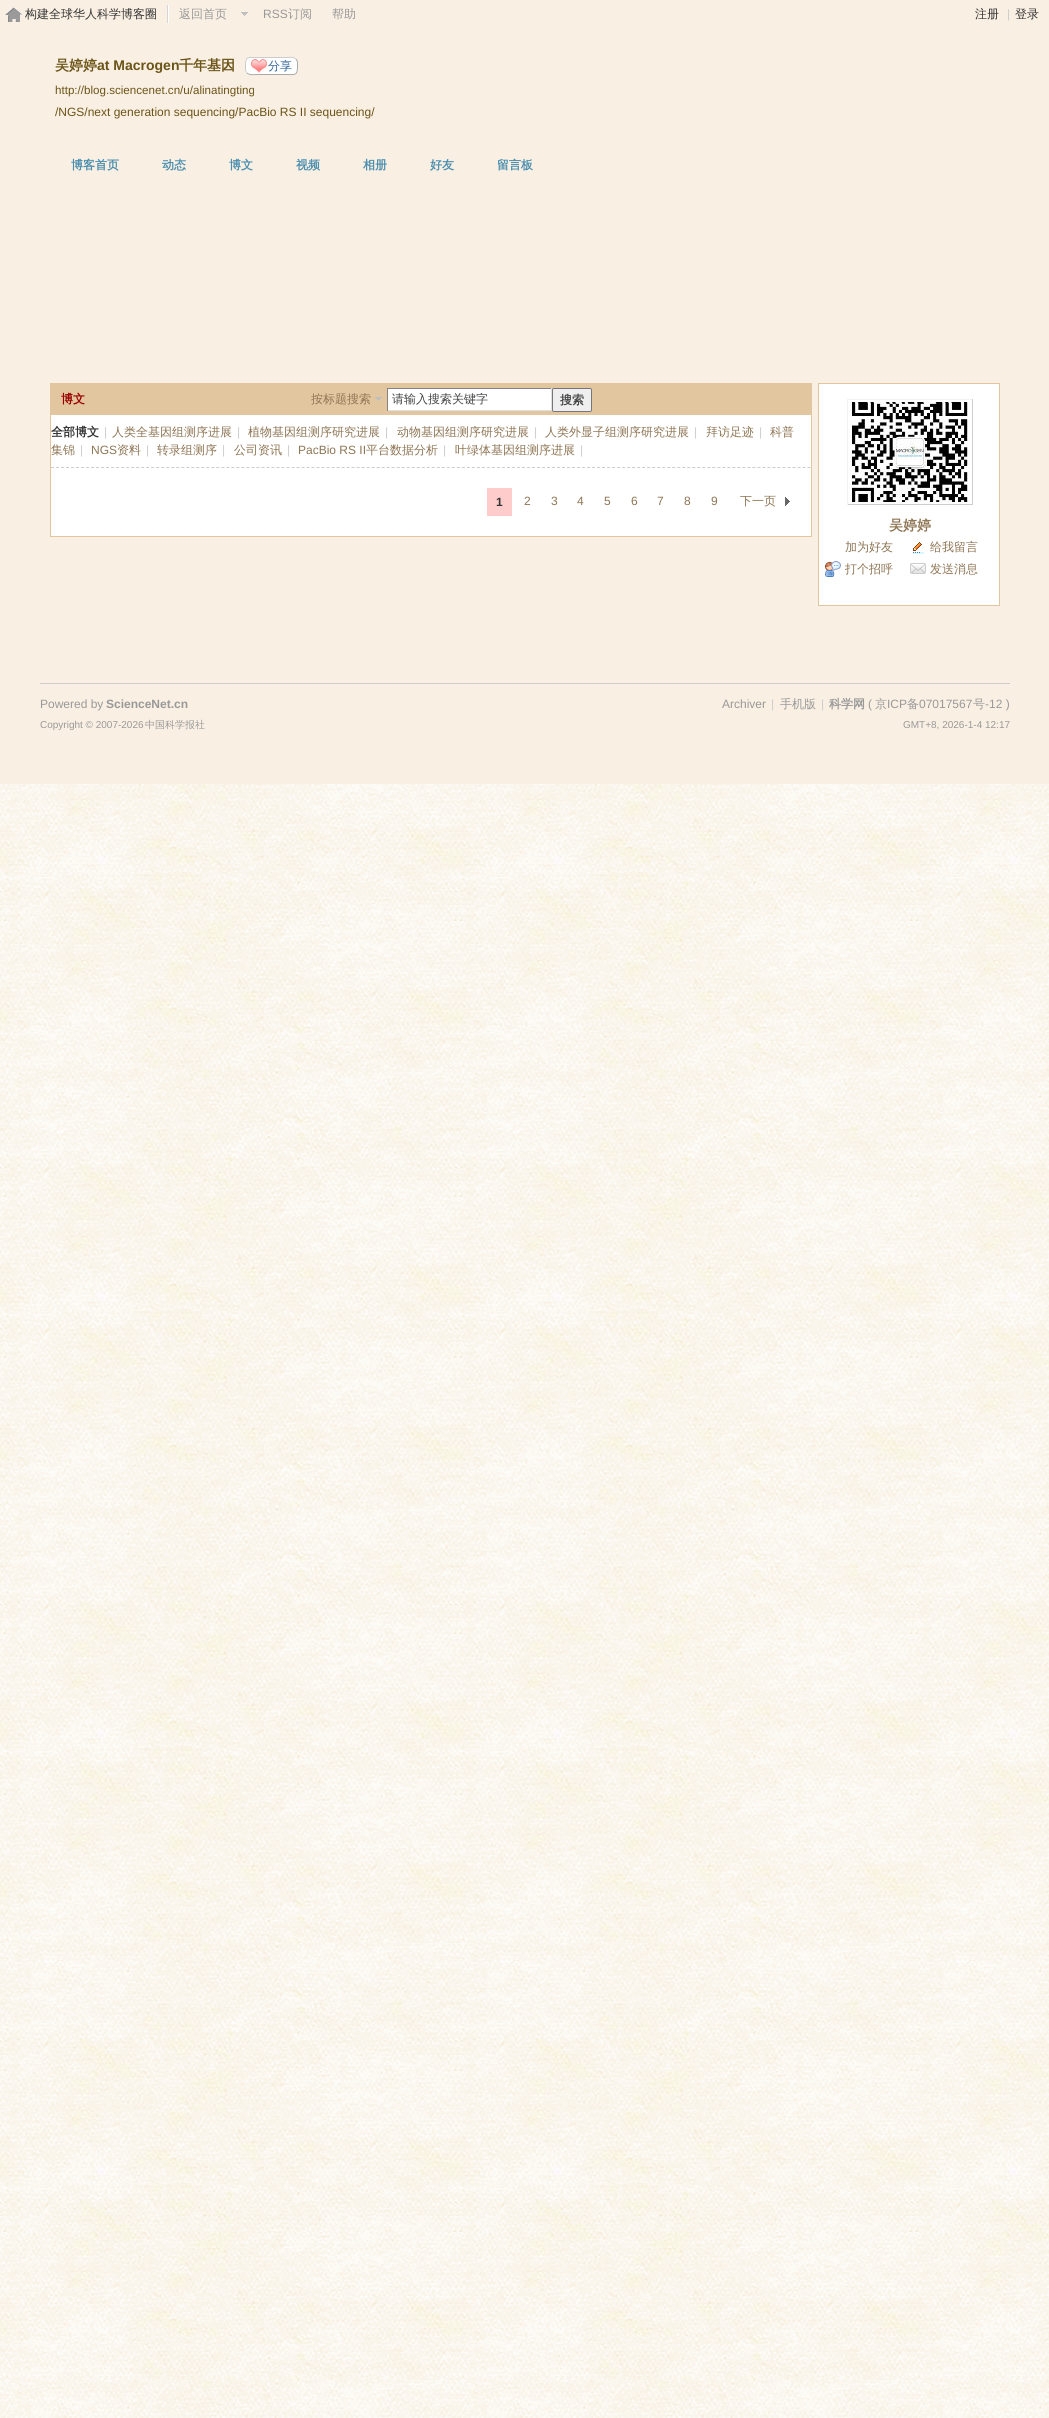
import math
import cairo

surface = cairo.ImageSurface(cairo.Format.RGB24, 1049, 2418)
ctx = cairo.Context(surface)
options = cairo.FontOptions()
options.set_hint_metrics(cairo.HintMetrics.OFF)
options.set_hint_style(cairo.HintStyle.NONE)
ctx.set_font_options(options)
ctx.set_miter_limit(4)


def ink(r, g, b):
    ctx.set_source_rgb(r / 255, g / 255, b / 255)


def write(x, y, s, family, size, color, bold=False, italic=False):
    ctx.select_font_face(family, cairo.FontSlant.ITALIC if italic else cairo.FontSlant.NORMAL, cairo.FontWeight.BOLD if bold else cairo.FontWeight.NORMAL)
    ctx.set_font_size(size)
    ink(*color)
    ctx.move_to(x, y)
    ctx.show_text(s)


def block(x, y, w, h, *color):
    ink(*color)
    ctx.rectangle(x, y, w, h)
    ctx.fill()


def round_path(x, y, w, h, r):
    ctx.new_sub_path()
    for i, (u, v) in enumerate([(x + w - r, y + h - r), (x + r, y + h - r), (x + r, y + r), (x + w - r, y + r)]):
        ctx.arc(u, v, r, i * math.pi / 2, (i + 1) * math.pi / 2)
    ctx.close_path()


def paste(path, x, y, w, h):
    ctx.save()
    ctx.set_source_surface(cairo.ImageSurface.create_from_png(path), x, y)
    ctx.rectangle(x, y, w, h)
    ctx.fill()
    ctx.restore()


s1 = dict(family="WenQuanYi Zen Hei Medium", size=12, color=(51, 51, 51))
s2 = dict(family="WenQuanYi Zen Hei Medium", size=12, color=(153, 153, 153))
s3 = dict(family="Liberation Sans", size=12, color=(153, 153, 153))
s4 = dict(family="Liberation Sans", size=12, color=(204, 204, 204))
s5 = dict(family="WenQuanYi Zen Hei", size=14, color=(107, 84, 23), bold=True)
s6 = dict(family="Liberation Sans", size=14, color=(107, 84, 23), bold=True)
s7 = dict(family="WenQuanYi Zen Hei Medium", size=12, color=(51, 102, 153))
s8 = dict(family="Liberation Sans", size=11.6, color=(107, 84, 23))
s9 = dict(family="Liberation Sans", size=12, color=(107, 84, 23))
s10 = dict(family="WenQuanYi Zen Hei", size=12, color=(75, 143, 175), bold=True)
s11 = dict(family="WenQuanYi Zen Hei", size=12, color=(153, 0, 0), bold=True)
s12 = dict(family="WenQuanYi Zen Hei Medium", size=12, color=(142, 117, 84))
s13 = dict(family="WenQuanYi Zen Hei Medium", size=12, color=(68, 68, 68))
s14 = dict(family="WenQuanYi Zen Hei", size=12, color=(68, 68, 68), bold=True)
s15 = dict(family="WenQuanYi Zen Hei", size=12, color=(51, 51, 51), bold=True)
s16 = dict(family="Liberation Sans", size=12, color=(142, 117, 84))
s17 = dict(family="Liberation Sans", size=12, color=(51, 51, 51), bold=True)
s18 = dict(family="WenQuanYi Zen Hei", size=14, color=(142, 117, 84), bold=True)
s19 = dict(family="Liberation Sans", size=12, color=(153, 153, 153), bold=True)
s20 = dict(family="Liberation Sans", size=10, color=(153, 153, 153))
s21 = dict(family="WenQuanYi Zen Hei Medium", size=10, color=(153, 153, 153))
s22 = dict(family="WenQuanYi Zen Hei", size=12, color=(153, 153, 153), bold=True)

ink(255, 255, 255)
ctx.paint()
paste("pic1.png", 0, 784, 1049, 1634)
block(0, 0, 1049, 784, 249, 239, 227)
paste("pic2.png", 5, 7, 17, 15)
block(168, 5, 1, 18, 255, 255, 255)
block(167, 5, 1, 18, 213, 213, 213)
write(25, 18, "构建全球华人科学博客圈", **s1)
write(179, 18, "返回首页", **s2)
paste("pic3.png", 241, 12, 7, 4)
write(263, 18, "RSS", **s3)
write(288, 18, "订阅", **s2)
write(332, 18, "帮助", **s2)
write(975, 18, "注册", **s1)
write(1007, 18, "|", **s4)
write(1015, 18, "登录", **s1)
write(55, 70, "吴婷婷", **s5)
write(97, 70, "at Macrogen", **s6)
write(179, 70, "千年基因", **s5)
ink(255, 255, 255)
round_path(245, 57, 53, 18, 5)
ctx.fill()
paste("pic4.png", 251, 59, 16, 14)
ctx.new_path()
ctx.move_to(296, 59)
ctx.curve_to(298, 61, 297.5, 64, 297.5, 67)
ctx.curve_to(297.5, 76, 294.5, 74.5, 286, 74.5)
ctx.line_to(257, 74.5)
ctx.curve_to(255, 74.5, 249.5, 75.5, 247, 73)
ink(169, 169, 169)
ctx.set_line_width(1)
ctx.stroke()
ctx.new_path()
ctx.move_to(247, 73)
ctx.curve_to(245, 71, 245.5, 68, 245.5, 65)
ctx.curve_to(245.5, 56, 248.5, 57.5, 257, 57.5)
ctx.line_to(286, 57.5)
ctx.curve_to(288, 57.5, 293.5, 56.5, 296, 59)
ink(204, 204, 204)
ctx.stroke()
write(268, 70, "分享", **s7)
write(55, 94, "http://blog.sciencenet.cn/u/alinatingting", **s8)
write(55, 116, "/NGS/next generation sequencing/PacBio RS II sequencing/", **s9)
write(71, 169, "博客首页", **s10)
write(162, 169, "动态", **s10)
write(229, 169, "博文", **s10)
write(296, 169, "视频", **s10)
write(363, 169, "相册", **s10)
write(430, 169, "好友", **s10)
write(497, 169, "留言板", **s10)
block(51, 415, 760, 121, 255, 255, 255)
ctx.rectangle(50.5, 383.5, 761, 153)
ink(226, 198, 159)
ctx.stroke()
block(51, 384, 760, 31, 226, 198, 159)
write(61, 403, "博文", **s11)
write(311, 403, "按标题搜索", **s12)
paste("pic5.png", 375, 397, 7, 4)
block(388, 389, 163, 21, 255, 255, 255)
block(387, 388, 165, 1, 132, 132, 132)
block(551, 388, 1, 23, 224, 224, 224)
block(387, 410, 165, 1, 224, 224, 224)
block(387, 388, 1, 23, 132, 132, 132)
write(392, 403, "请输入搜索关键字", **s13)
ink(239, 239, 239)
round_path(552.5, 388.5, 39, 23, 1.5)
ctx.fill_preserve()
ink(118, 118, 118)
ctx.stroke()
write(560, 404, "搜索", **s14)
ctx.new_path()
ctx.move_to(51, 467.5)
ctx.line_to(811, 467.5)
ink(205, 205, 205)
ctx.set_dash([3, 2.01])
ctx.stroke()
write(51, 436, "全部博文", **s15)
write(104, 436, "|", **s4)
write(112, 436, "人类全基因组测序进展", **s12)
write(237, 436, "|", **s4)
write(248, 436, "植物基因组测序研究进展", **s12)
write(385, 436, "|", **s4)
write(397, 436, "动物基因组测序研究进展", **s12)
write(534, 436, "|", **s4)
write(545, 436, "人类外显子组测序研究进展", **s12)
write(694, 436, "|", **s4)
write(706, 436, "拜访足迹", **s12)
write(759, 436, "|", **s4)
write(770, 436, "科普", **s12)
write(51, 454, "集锦", **s12)
write(80, 454, "|", **s4)
write(91, 454, "NGS", **s16)
write(117, 454, "资料", **s12)
write(146, 454, "|", **s4)
write(157, 454, "转录组测序", **s12)
write(222, 454, "|", **s4)
write(234, 454, "公司资讯", **s12)
write(287, 454, "|", **s4)
write(298, 454, "PacBio RS II", **s16)
write(366, 454, "平台数据分析", **s12)
write(443, 454, "|", **s4)
write(455, 454, "叶绿体基因组测序进展", **s12)
write(580, 454, "|", **s4)
block(487, 488, 25, 28, 255, 204, 204)
write(496, 506, "1", **s17)
write(524, 505, "2", **s16)
write(551, 505, "3", **s16)
write(577, 505, "4", **s16)
write(604, 505, "5", **s16)
write(631, 505, "6", **s16)
write(657, 505, "7", **s16)
write(684, 505, "8", **s16)
write(711, 505, "9", **s16)
paste("pic6.png", 785, 497, 5, 9)
write(740, 505, "下一页", **s12)
ink(255, 255, 255)
ctx.rectangle(818.5, 383.5, 181, 222)
ctx.fill_preserve()
ink(226, 198, 159)
ctx.set_dash([])
ctx.stroke()
block(847, 399, 126, 1, 242, 242, 242)
block(972, 399, 1, 106, 205, 205, 205)
block(847, 504, 126, 1, 205, 205, 205)
block(847, 399, 1, 106, 242, 242, 242)
paste("pic7.png", 850, 402, 120, 100)
write(889, 530, "吴婷婷", **s18)
write(845, 551, "加为好友", **s12)
paste("pic8.png", 913, 542, 11, 12)
write(930, 551, "给我留言", **s12)
paste("pic9.png", 825, 561, 16, 16)
write(845, 573, "打个招呼", **s12)
paste("pic10.png", 910, 563, 16, 11)
write(930, 573, "发送消息", **s12)
block(40, 683, 970, 1, 205, 205, 205)
write(40, 708, "Powered by", **s3)
write(106, 708, "ScienceNet.cn", **s19)
write(40, 728, "Copyright © 2007-2026", **s20)
write(145, 728, "中国科学报社", **s21)
write(722, 708, "Archiver", **s3)
write(771, 708, "|", **s4)
write(780, 708, "手机版", **s2)
write(821, 708, "|", **s4)
write(829, 708, "科学网", **s22)
write(868, 708, "(", **s3)
write(875, 708, "京", **s2)
write(887, 708, "ICP", **s3)
write(907, 708, "备", **s2)
write(919, 708, "07017567", **s3)
write(973, 708, "号", **s2)
write(985, 708, "-12 )", **s3)
write(903, 728, "GMT+8, 2026-1-4 12:17", **s20)
surface.write_to_png("screenshot.png")
